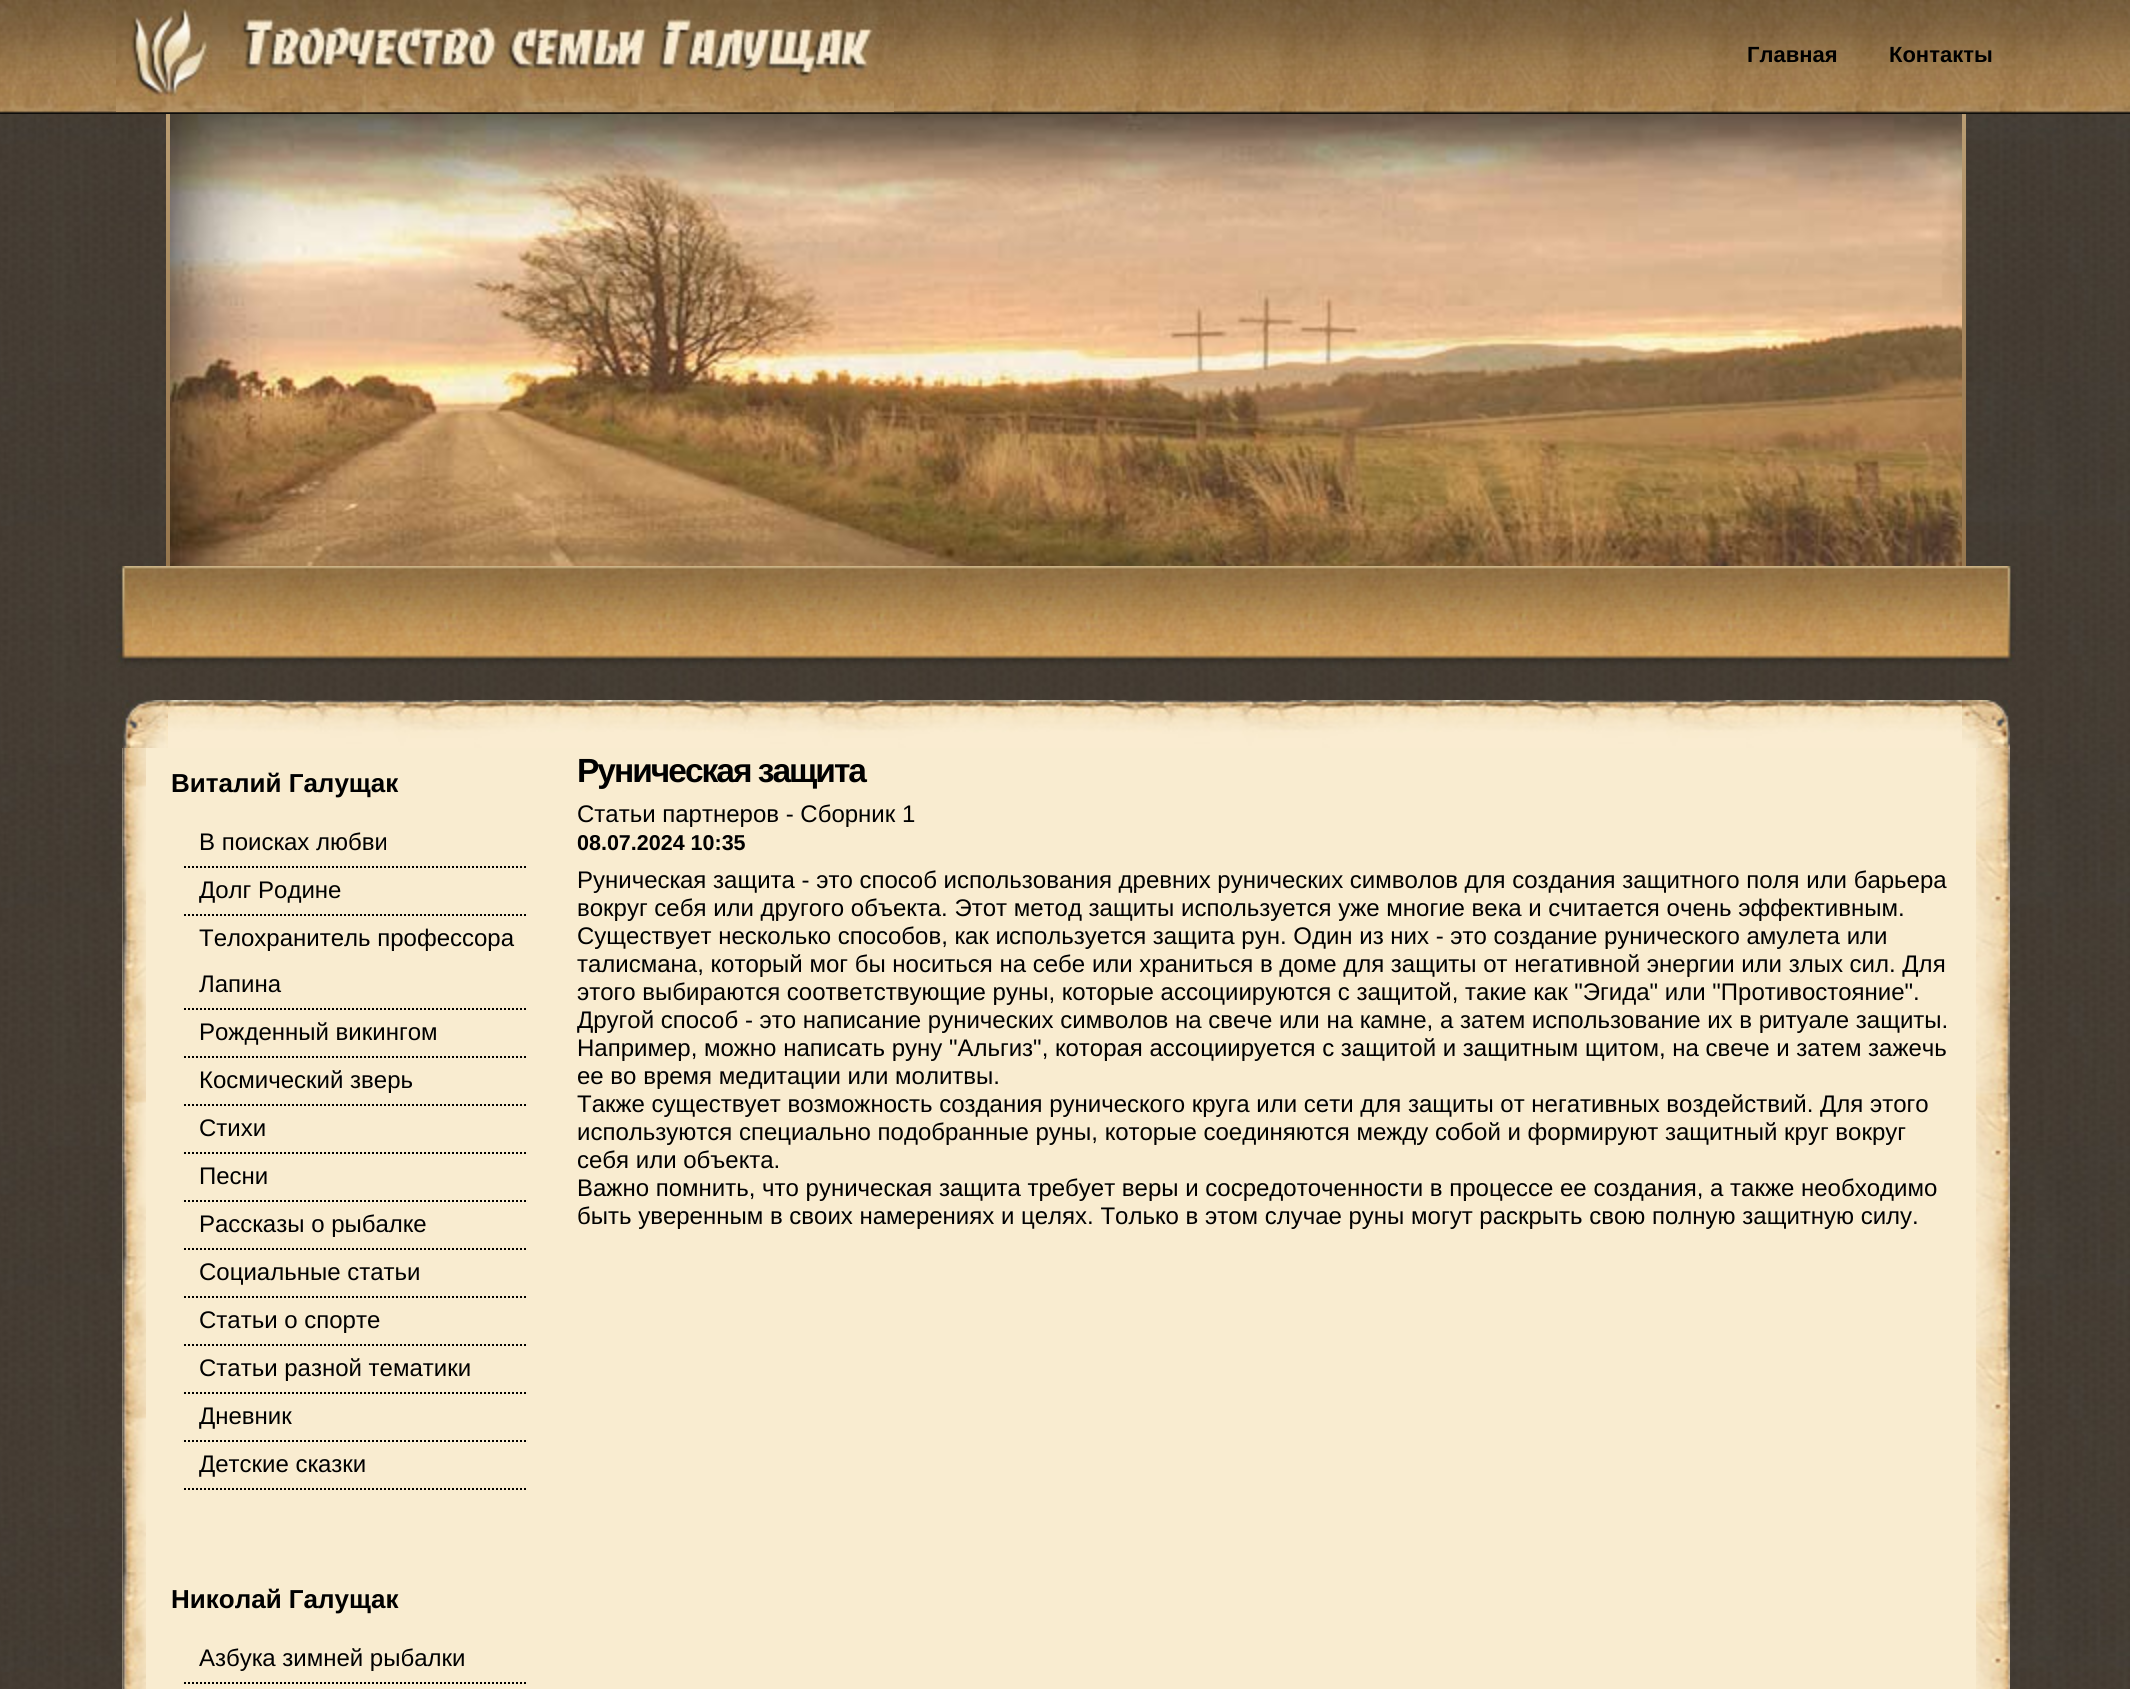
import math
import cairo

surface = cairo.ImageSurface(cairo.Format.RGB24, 2130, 1689)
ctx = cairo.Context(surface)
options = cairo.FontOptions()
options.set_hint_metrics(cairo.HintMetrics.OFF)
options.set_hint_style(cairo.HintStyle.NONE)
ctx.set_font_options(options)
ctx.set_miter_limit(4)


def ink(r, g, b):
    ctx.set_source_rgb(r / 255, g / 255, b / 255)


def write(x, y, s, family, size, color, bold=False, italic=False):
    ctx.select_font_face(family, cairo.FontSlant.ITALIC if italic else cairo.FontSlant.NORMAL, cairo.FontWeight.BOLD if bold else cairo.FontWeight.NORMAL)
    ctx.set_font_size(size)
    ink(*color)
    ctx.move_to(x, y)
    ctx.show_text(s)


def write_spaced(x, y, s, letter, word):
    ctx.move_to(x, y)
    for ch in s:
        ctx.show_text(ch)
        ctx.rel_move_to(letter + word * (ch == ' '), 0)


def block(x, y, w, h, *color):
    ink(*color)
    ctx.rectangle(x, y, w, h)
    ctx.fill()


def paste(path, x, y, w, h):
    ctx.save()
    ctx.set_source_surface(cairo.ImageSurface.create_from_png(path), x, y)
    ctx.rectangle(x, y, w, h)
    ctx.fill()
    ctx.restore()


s1 = dict(family="Liberation Sans", size=22, color=(0, 0, 0), bold=True)
s2 = dict(family="Liberation Sans", size=26, color=(0, 0, 0), bold=True)
s3 = dict(family="Liberation Sans", size=24, color=(0, 0, 0))
s4 = dict(family="Liberation Sans", size=21.5, color=(0, 0, 0), bold=True)

ink(255, 255, 255)
ctx.paint()
paste("pic1.png", 0, 114, 2130, 1575)
paste("pic2.png", 0, 0, 2130, 114)
paste("pic3.png", 116, 0, 778, 112)
write(1747, 62, "Главная", **s1)
write(1889, 62, "Контакты", **s1)
paste("pic4.png", 170, 114, 1792, 452)
paste("pic5.png", 166, 114, 4, 452)
paste("pic5.png", 1962, 114, 4, 452)
paste("pic6.png", 152, 566, 1864, 102)
paste("pic7.png", 116, 566, 36, 102)
paste("pic8.png", 1982, 566, 34, 99)
paste("pic9.png", 168, 700, 1794, 48)
paste("pic10.png", 122, 700, 46, 48)
paste("pic11.png", 1962, 700, 48, 48)
paste("pic12.png", 122, 748, 24, 941)
block(146, 748, 1830, 941, 249, 236, 208)
paste("pic13.png", 1976, 748, 34, 941)
write(171, 792, "Виталий Галущак", **s2)
ctx.new_path()
ctx.move_to(184, 867)
ctx.line_to(528, 867)
ctx.set_dash([2, 2])
ctx.stroke()
write(199, 850, "В поисках любви", **s3)
ctx.new_path()
ctx.move_to(184, 915)
ctx.line_to(528, 915)
ctx.stroke()
write(199, 898, "Долг Родине", **s3)
ctx.new_path()
ctx.move_to(184, 1009)
ctx.line_to(528, 1009)
ctx.stroke()
write(199, 946, "Телохранитель профессора", **s3)
write(199, 992, "Лапина", **s3)
ctx.new_path()
ctx.move_to(184, 1057)
ctx.line_to(528, 1057)
ctx.stroke()
write(199, 1040, "Рожденный викингом", **s3)
ctx.new_path()
ctx.move_to(184, 1105)
ctx.line_to(528, 1105)
ctx.stroke()
write(199, 1088, "Космический зверь", **s3)
ctx.new_path()
ctx.move_to(184, 1153)
ctx.line_to(528, 1153)
ctx.stroke()
write(199, 1136, "Стихи", **s3)
ctx.new_path()
ctx.move_to(184, 1201)
ctx.line_to(528, 1201)
ctx.stroke()
write(199, 1184, "Песни", **s3)
ctx.new_path()
ctx.move_to(184, 1249)
ctx.line_to(528, 1249)
ctx.stroke()
write(199, 1232, "Рассказы о рыбалке", **s3)
ctx.new_path()
ctx.move_to(184, 1297)
ctx.line_to(528, 1297)
ctx.stroke()
write(199, 1280, "Социальные статьи", **s3)
ctx.new_path()
ctx.move_to(184, 1345)
ctx.line_to(528, 1345)
ctx.stroke()
write(199, 1328, "Статьи о спорте", **s3)
ctx.new_path()
ctx.move_to(184, 1393)
ctx.line_to(528, 1393)
ctx.stroke()
write(199, 1376, "Статьи разной тематики", **s3)
ctx.new_path()
ctx.move_to(184, 1441)
ctx.line_to(528, 1441)
ctx.stroke()
write(199, 1424, "Дневник", **s3)
ctx.new_path()
ctx.move_to(184, 1489)
ctx.line_to(528, 1489)
ctx.stroke()
write(199, 1472, "Детские сказки", **s3)
write(171, 1608, "Николай Галущак", **s2)
ctx.new_path()
ctx.move_to(184, 1683)
ctx.line_to(528, 1683)
ctx.stroke()
write(199, 1666, "Азбука зимней рыбалки", **s3)
ctx.select_font_face("Liberation Sans", cairo.FontSlant.NORMAL, cairo.FontWeight.BOLD)
ctx.set_font_size(33.5)
write_spaced(577, 782, "Руническая защита", -2, 0)
write(577, 822, "Статьи партнеров - Сборник 1", **s3)
write(577, 850, "08.07.2024 10:35", **s4)
write(577, 888, "Руническая защита - это способ использования древних рунических символов для создания защитного поля или барьера", **s3)
write(577, 916, "вокруг себя или другого объекта. Этот метод защиты используется уже многие века и считается очень эффективным.", **s3)
write(577, 944, "Существует несколько способов, как используется защита рун. Один из них - это создание рунического амулета или", **s3)
write(577, 972, "талисмана, который мог бы носиться на себе или храниться в доме для защиты от негативной энергии или злых сил. Для", **s3)
write(577, 1000, "этого выбираются соответствующие руны, которые ассоциируются с защитой, такие как \"Эгида\" или \"Противостояние\".", **s3)
write(577, 1028, "Другой способ - это написание рунических символов на свече или на камне, а затем использование их в ритуале защиты.", **s3)
write(577, 1056, "Например, можно написать руну \"Альгиз\", которая ассоциируется с защитой и защитным щитом, на свече и затем зажечь", **s3)
write(577, 1084, "ее во время медитации или молитвы.", **s3)
write(577, 1112, "Также существует возможность создания рунического круга или сети для защиты от негативных воздействий. Для этого", **s3)
write(577, 1140, "используются специально подобранные руны, которые соединяются между собой и формируют защитный круг вокруг", **s3)
write(577, 1168, "себя или объекта.", **s3)
write(577, 1196, "Важно помнить, что руническая защита требует веры и сосредоточенности в процессе ее создания, а также необходимо", **s3)
write(577, 1224, "быть уверенным в своих намерениях и целях. Только в этом случае руны могут раскрыть свою полную защитную силу.", **s3)
surface.write_to_png("screenshot.png")
